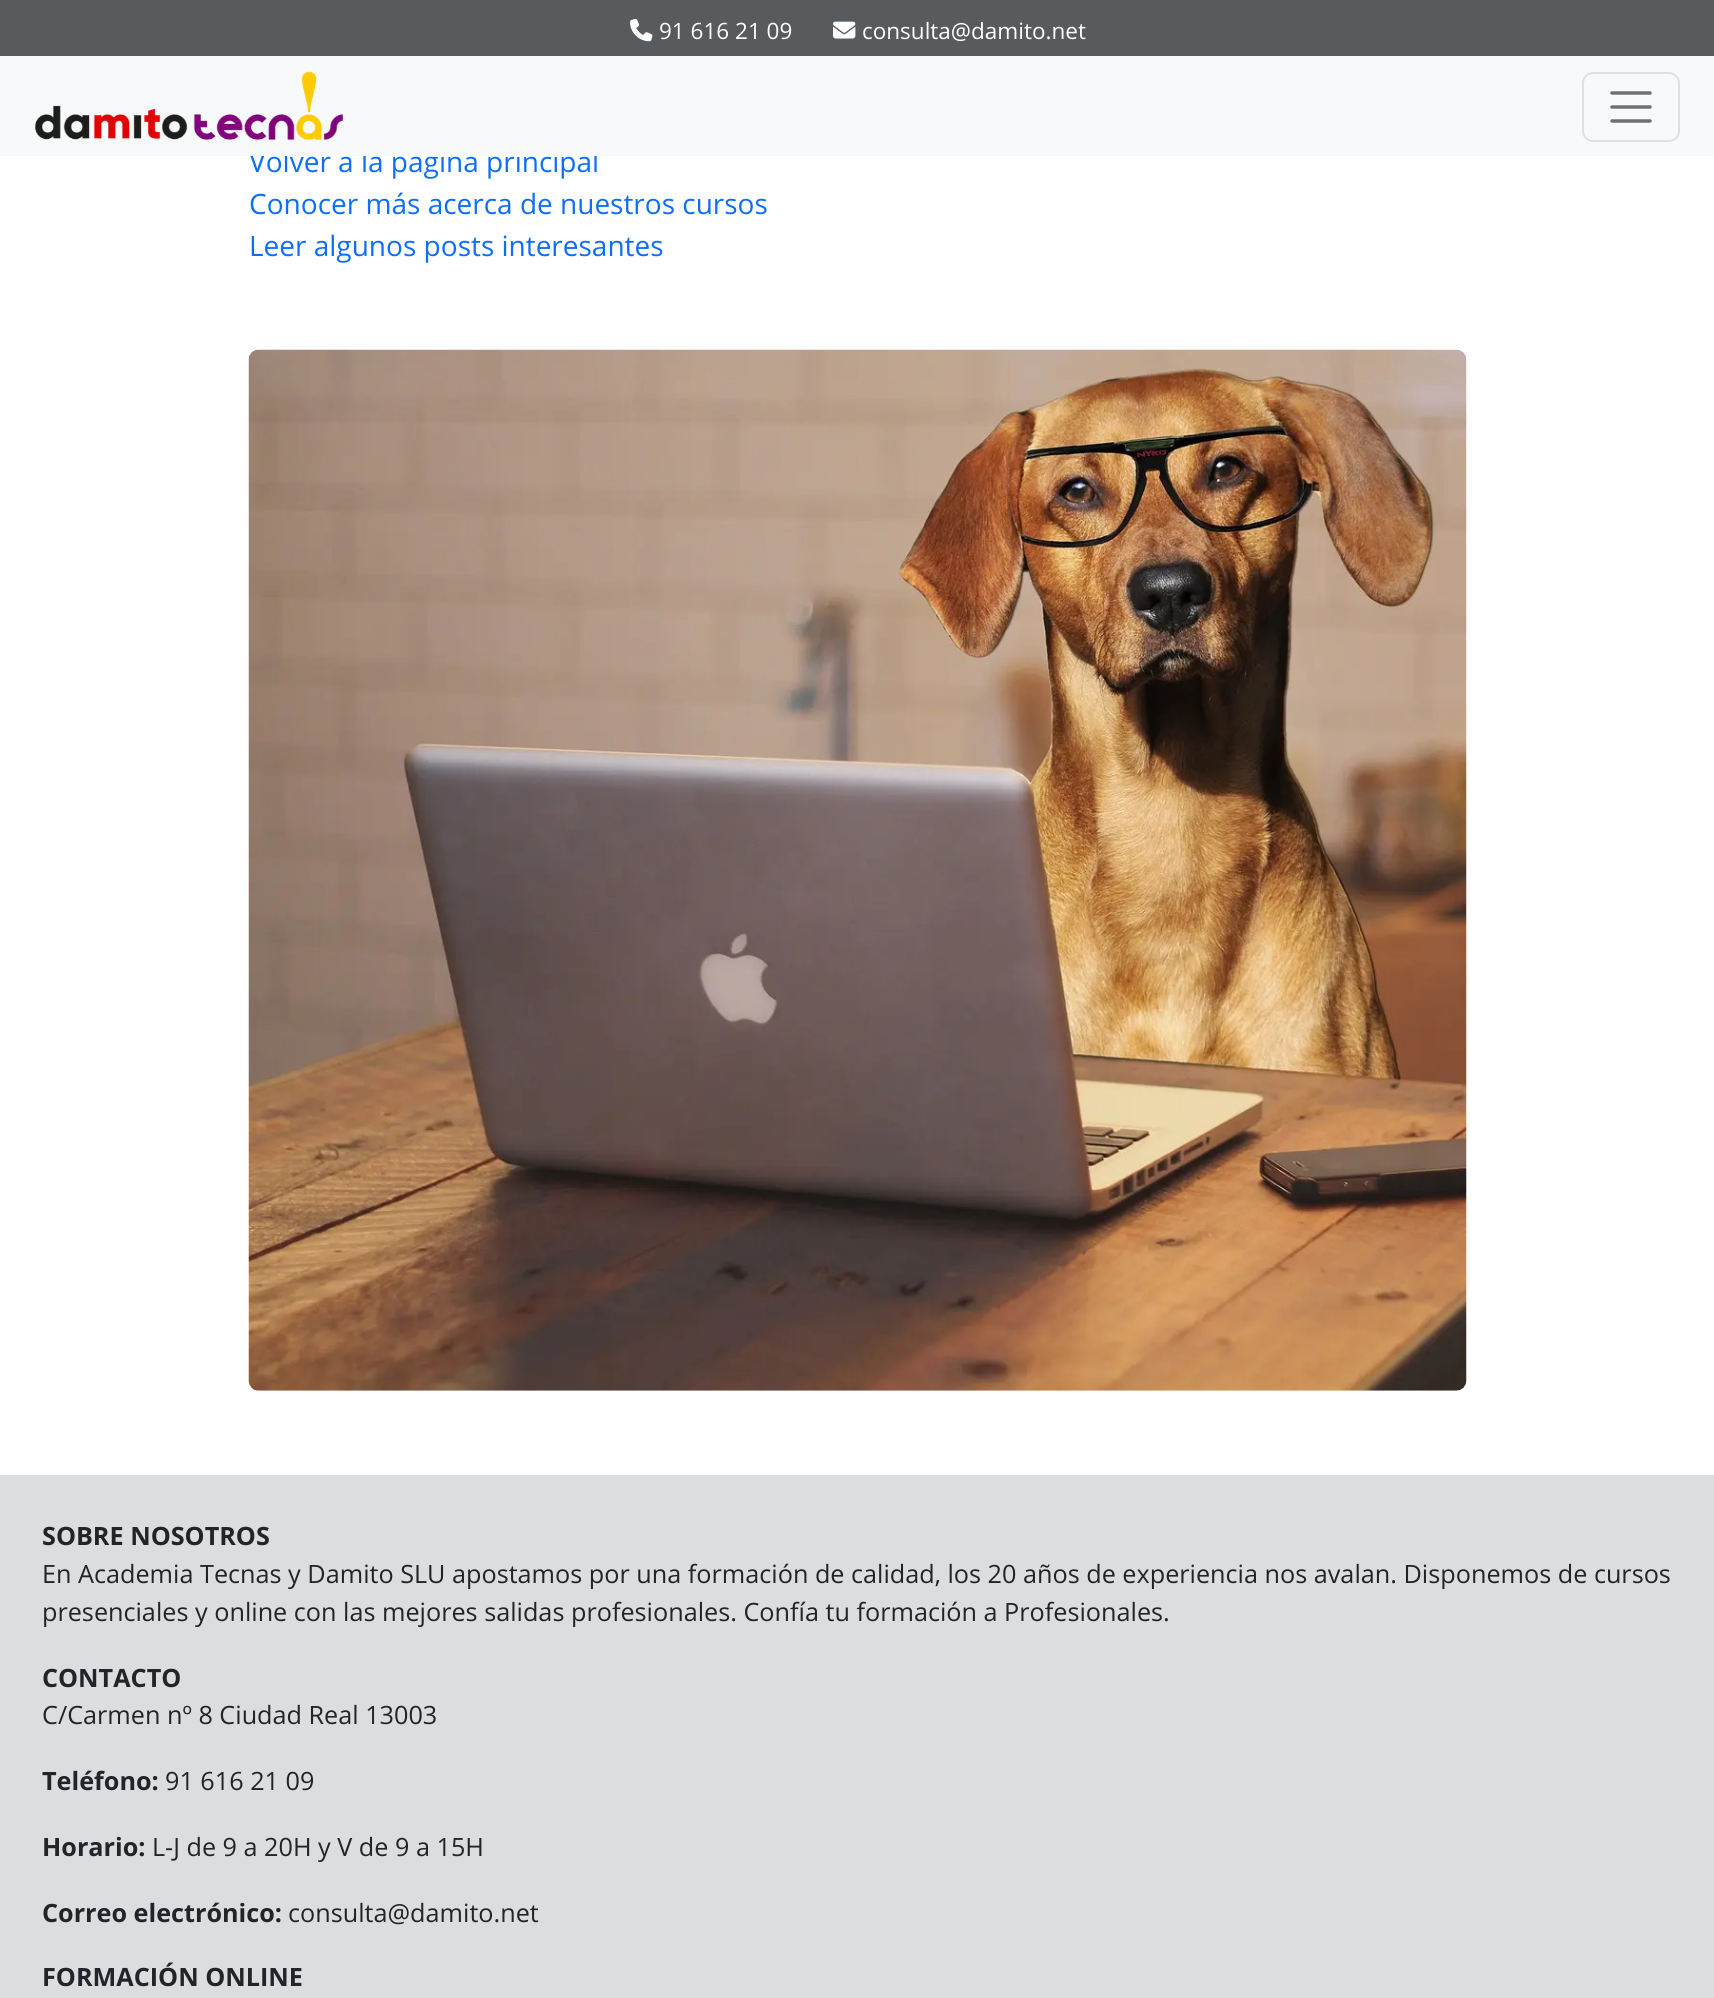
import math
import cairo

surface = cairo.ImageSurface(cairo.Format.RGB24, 1714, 1998)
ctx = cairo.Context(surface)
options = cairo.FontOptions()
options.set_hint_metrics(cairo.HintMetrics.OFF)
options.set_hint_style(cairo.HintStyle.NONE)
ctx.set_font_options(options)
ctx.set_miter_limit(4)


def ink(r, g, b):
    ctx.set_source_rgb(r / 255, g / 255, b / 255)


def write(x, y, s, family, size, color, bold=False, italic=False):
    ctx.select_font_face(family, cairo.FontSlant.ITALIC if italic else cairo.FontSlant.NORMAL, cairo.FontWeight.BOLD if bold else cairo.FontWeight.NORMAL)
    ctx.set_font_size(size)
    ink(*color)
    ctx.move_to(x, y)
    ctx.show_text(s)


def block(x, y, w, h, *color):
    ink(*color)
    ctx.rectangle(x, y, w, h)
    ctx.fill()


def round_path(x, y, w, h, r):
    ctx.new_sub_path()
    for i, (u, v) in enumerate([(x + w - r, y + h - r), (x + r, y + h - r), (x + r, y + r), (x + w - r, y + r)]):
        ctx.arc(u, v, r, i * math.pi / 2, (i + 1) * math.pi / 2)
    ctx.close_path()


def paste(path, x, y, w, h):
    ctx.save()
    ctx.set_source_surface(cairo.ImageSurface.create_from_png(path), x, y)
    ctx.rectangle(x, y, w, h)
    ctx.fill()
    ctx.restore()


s1 = dict(family="Open Sans", size=22.5, color=(255, 255, 255))
s2 = dict(family="Open Sans", size=28, color=(13, 110, 253))
s3 = dict(family="Open Sans", size=25.2, color=(33, 37, 41), bold=True)
s4 = dict(family="Open Sans", size=25.2, color=(33, 37, 41))

ink(255, 255, 255)
ctx.paint()
ctx.set_source_rgba(0.129, 0.145, 0.161, 0.75)
ctx.rectangle(0, 0, 1714, 56)
ctx.fill()
paste("pic1.png", 630, 18, 23, 24)
write(659, 39, "91 616 21 09", **s1)
paste("pic2.png", 833, 21, 23, 18)
write(862, 39, "consulta@damito.net", **s1)
write(249, 172, "Volver a la página principal", **s2)
block(0, 56, 1714, 100, 248, 249, 250)
paste("pic3.png", 35, 71, 308, 69)
round_path(1583, 73, 96, 68, 10)
ink(223, 224, 225)
ctx.stroke()
ctx.new_path()
ctx.move_to(1612, 93)
ctx.line_to(1650, 93)
ctx.move_to(1612, 107)
ctx.line_to(1650, 107)
ctx.move_to(1612, 121)
ctx.line_to(1650, 121)
ink(112, 112, 113)
ctx.set_line_width(3.5)
ctx.set_line_cap(cairo.LineCap.ROUND)
ctx.stroke()
write(249, 214, "Conocer más acerca de nuestros cursos", **s2)
write(249, 256, "Leer algunos posts interesantes", **s2)
paste("pic4.png", 248, 349, 1219, 1042)
block(0, 1475, 1714, 523, 219, 221, 223)
write(42, 1545, "SOBRE NOSOTROS", **s3)
write(42, 1583, "En Academia Tecnas y Damito SLU apostamos por una formación de calidad, los 20 años de experiencia nos avalan. Disponemos de cursos", **s4)
write(42, 1621, "presenciales y online con las mejores salidas profesionales. Confía tu formación a Profesionales.", **s4)
write(42, 1687, "CONTACTO", **s3)
write(42, 1724, "C/Carmen nº 8 Ciudad Real 13003", **s4)
write(42, 1790, "Teléfono:", **s3)
write(165, 1790, "91 616 21 09", **s4)
write(42, 1856, "Horario:", **s3)
write(152, 1856, "L-J de 9 a 20H y V de 9 a 15H", **s4)
write(42, 1922, "Correo electrónico:", **s3)
write(288, 1922, "consulta@damito.net", **s4)
write(42, 1986, "FORMACIÓN ONLINE", **s3)
surface.write_to_png("screenshot.png")
